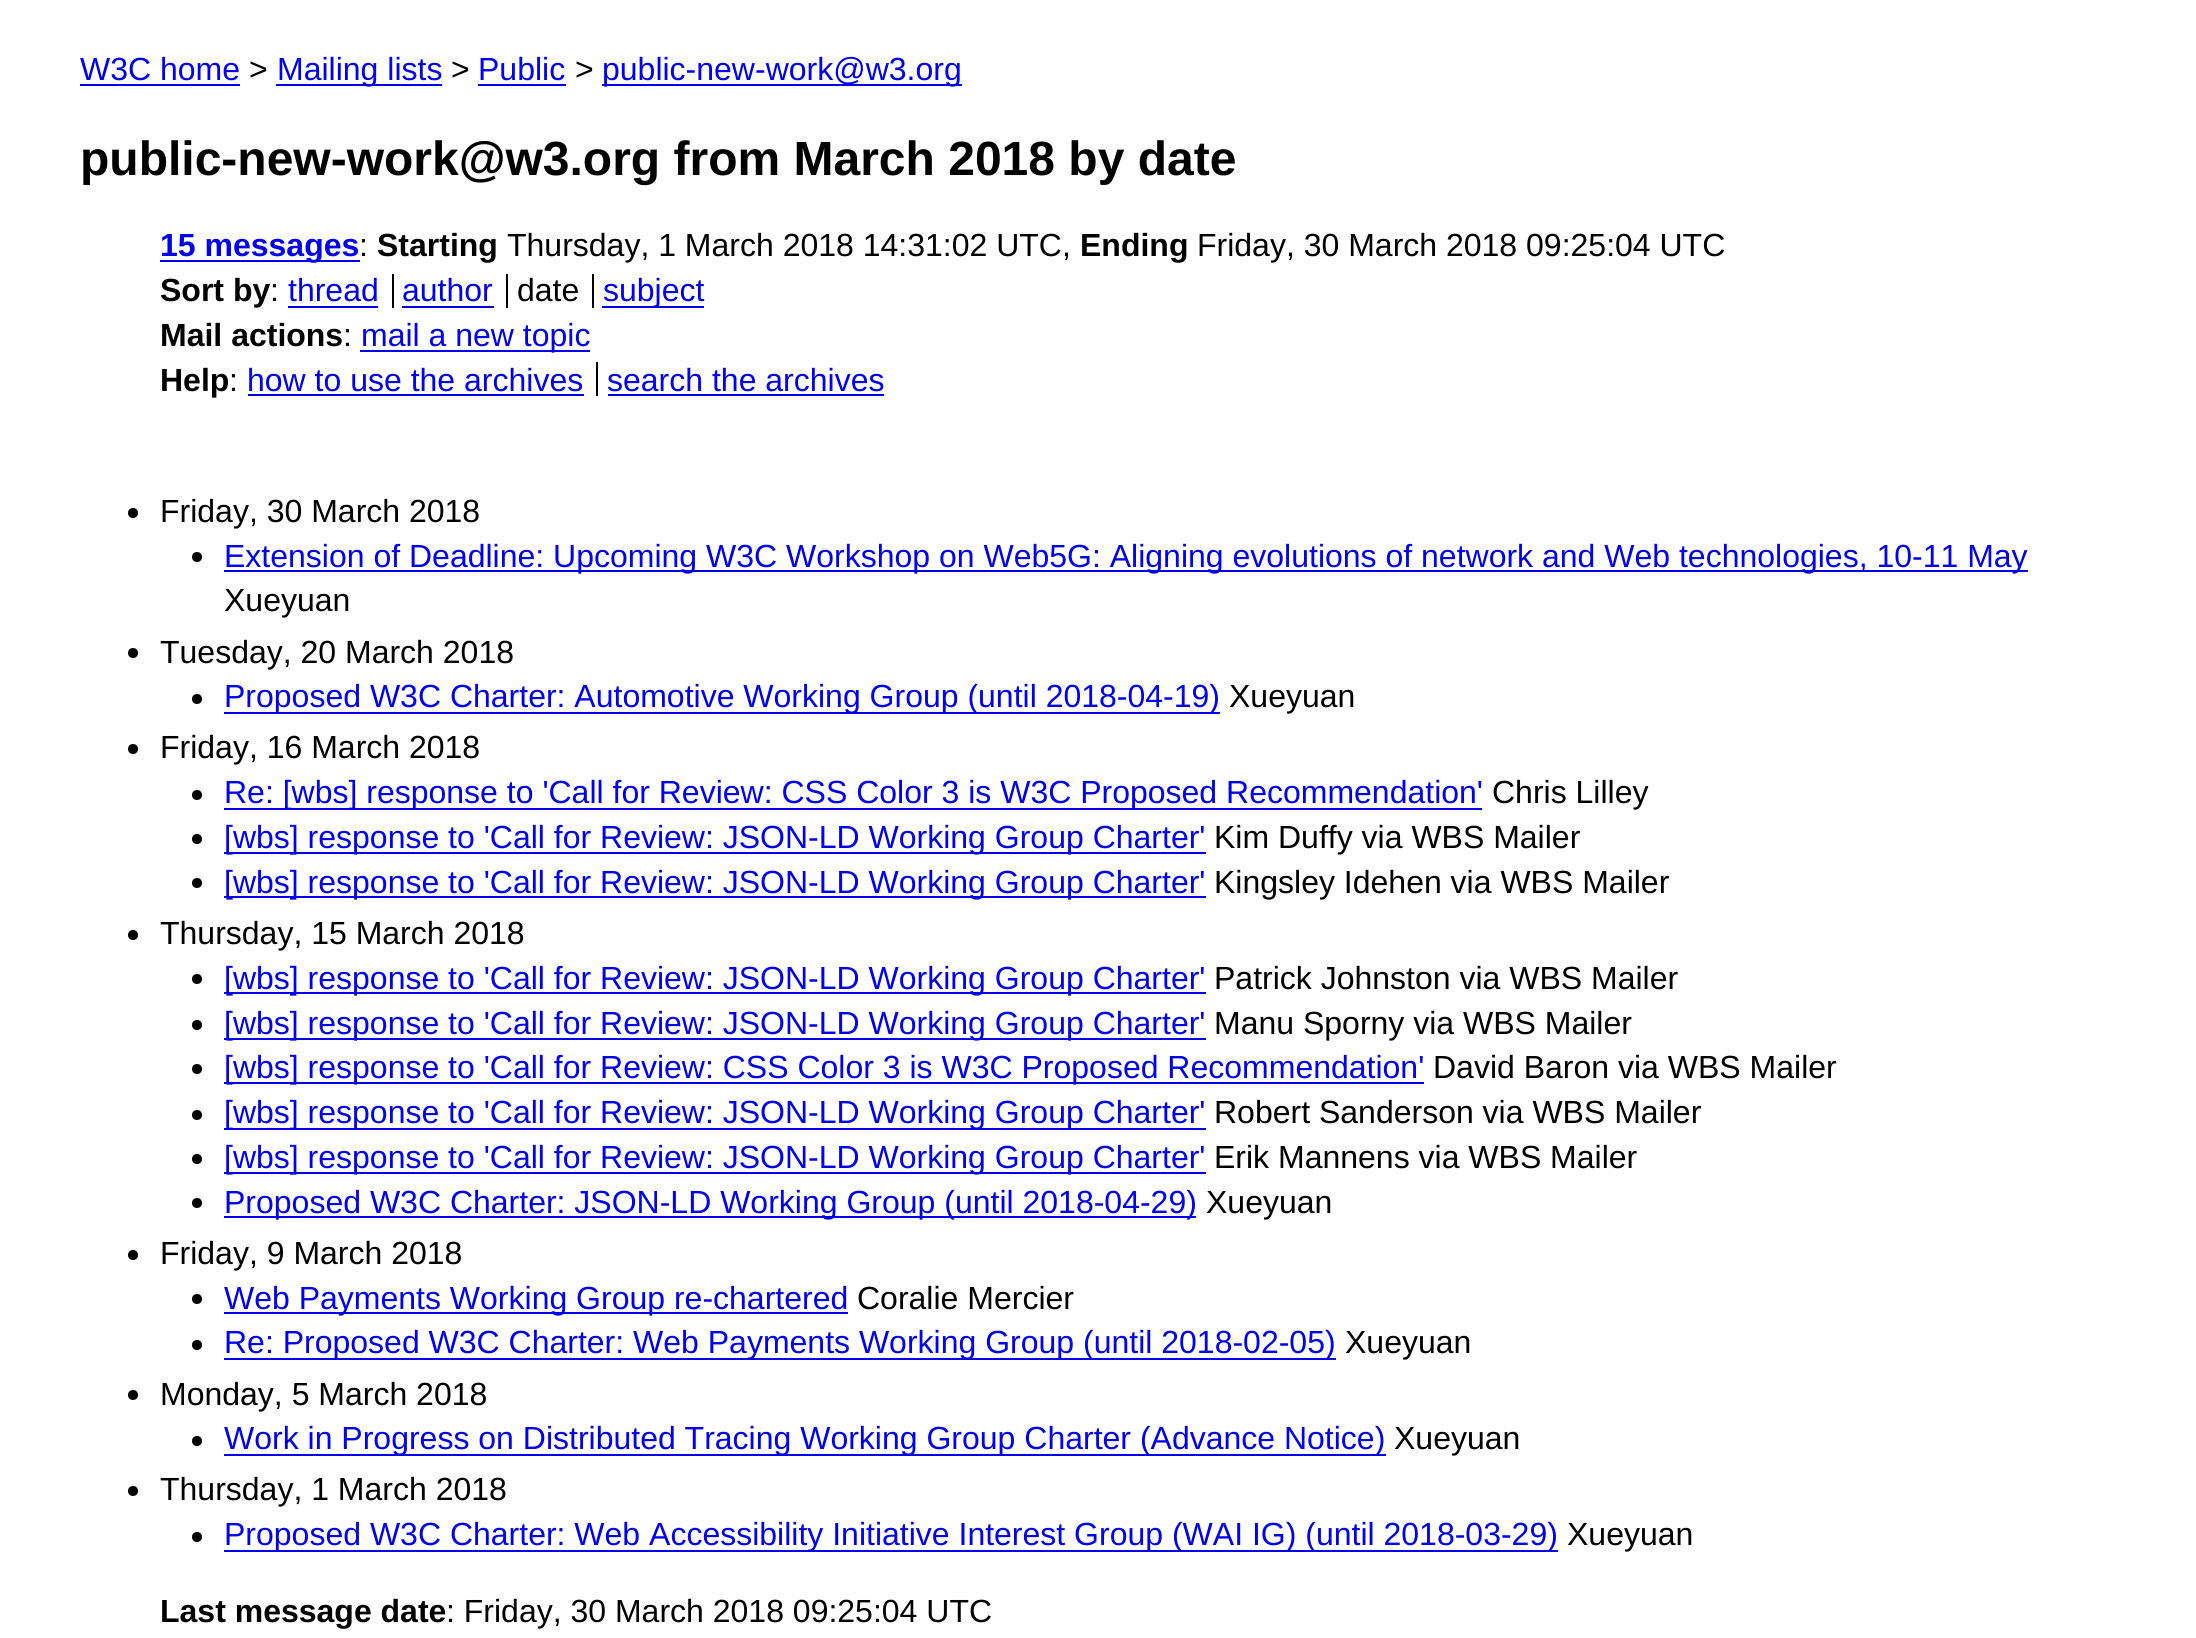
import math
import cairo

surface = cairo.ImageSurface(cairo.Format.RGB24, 2196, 1638)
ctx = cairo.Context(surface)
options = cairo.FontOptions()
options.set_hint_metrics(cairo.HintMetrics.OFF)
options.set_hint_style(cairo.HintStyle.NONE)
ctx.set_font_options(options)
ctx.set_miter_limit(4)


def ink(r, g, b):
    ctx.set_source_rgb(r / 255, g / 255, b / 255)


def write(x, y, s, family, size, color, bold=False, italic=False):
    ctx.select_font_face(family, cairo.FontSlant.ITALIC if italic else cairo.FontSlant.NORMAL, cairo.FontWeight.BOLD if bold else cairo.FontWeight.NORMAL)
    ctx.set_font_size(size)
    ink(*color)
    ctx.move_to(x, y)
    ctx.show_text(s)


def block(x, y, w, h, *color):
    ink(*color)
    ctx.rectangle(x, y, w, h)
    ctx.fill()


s1 = dict(family="Liberation Sans", size=32, color=(0, 0, 238))
s2 = dict(family="Liberation Sans", size=32, color=(0, 0, 0))
s3 = dict(family="Liberation Sans", size=48, color=(0, 0, 0), bold=True)
s4 = dict(family="Liberation Sans", size=32, color=(0, 0, 238), bold=True)
s5 = dict(family="Liberation Sans", size=32, color=(0, 0, 0), bold=True)

ink(255, 255, 255)
ctx.paint()
write(80, 80, "W3C home", **s1)
block(80, 84, 160, 2, 0, 0, 238)
write(249, 80, ">", **s2)
block(276, 84, 166, 2, 0, 0, 238)
write(277, 80, "Mailing lists", **s1)
write(451, 80, ">", **s2)
write(478, 80, "Public", **s1)
block(478, 84, 88, 2, 0, 0, 238)
write(575, 80, ">", **s2)
block(602, 84, 360, 2, 0, 0, 238)
write(602, 80, "public-new-work@w3.org", **s1)
write(80, 175, "public-new-work@w3.org from March 2018 by date", **s3)
block(160, 260, 200, 2, 0, 0, 238)
write(160, 256, "15 messages", **s4)
write(359, 256, ":", **s2)
write(377, 256, "Starting", **s5)
write(507, 256, "Thursday, 1 March 2018 14:31:02 UTC,", **s2)
write(1080, 256, "Ending", **s5)
write(1197, 256, "Friday, 30 March 2018 09:25:04 UTC", **s2)
write(160, 301, "Sort by", **s5)
write(270, 301, ":", **s2)
write(288, 301, "thread", **s1)
block(288, 306, 90, 2, 0, 0, 238)
write(402, 301, "author", **s1)
block(392, 274, 2, 34, 0, 0, 0)
block(402, 306, 92, 2, 0, 0, 238)
write(517, 301, "date", **s2)
block(506, 274, 2, 34, 0, 0, 0)
block(602, 306, 102, 2, 0, 0, 238)
write(603, 301, "subject", **s1)
block(592, 274, 2, 34, 0, 0, 0)
write(160, 346, "Mail actions", **s5)
write(343, 346, ":", **s2)
block(360, 350, 230, 2, 0, 0, 238)
write(361, 346, "mail a new topic", **s1)
write(160, 391, "Help", **s5)
write(229, 391, ":", **s2)
write(247, 391, "how to use the archives", **s1)
block(248, 394, 336, 2, 0, 0, 238)
write(607, 391, "search the archives", **s1)
block(596, 362, 2, 34, 0, 0, 0)
block(608, 394, 276, 2, 0, 0, 238)
ink(0, 0, 0)
ctx.new_path()
ctx.arc(133, 513, 5, 0, 2 * math.pi)
ctx.fill()
write(160, 522, "Friday, 30 March 2018", **s2)
ctx.new_path()
ctx.arc(197, 557, 5, 0, 2 * math.pi)
ctx.fill()
block(224, 570, 1804, 2, 0, 0, 238)
write(224, 567, "Extension of Deadline: Upcoming W3C Workshop on Web5G: Aligning evolutions of network and Web technologies, 10-11 May", **s1)
write(224, 611, "Xueyuan", **s2)
ctx.new_path()
ctx.arc(133, 653, 5, 0, 2 * math.pi)
ctx.fill()
write(160, 663, "Tuesday, 20 March 2018", **s2)
ctx.new_path()
ctx.arc(197, 699, 5, 0, 2 * math.pi)
ctx.fill()
block(224, 712, 996, 2, 0, 0, 238)
write(224, 707, "Proposed W3C Charter: Automotive Working Group (until 2018-04-19)", **s1)
write(1229, 707, "Xueyuan", **s2)
ctx.new_path()
ctx.arc(133, 749, 5, 0, 2 * math.pi)
ctx.fill()
write(160, 758, "Friday, 16 March 2018", **s2)
ctx.new_path()
ctx.arc(197, 795, 5, 0, 2 * math.pi)
ctx.fill()
block(224, 808, 1258, 2, 0, 0, 238)
write(224, 803, "Re: [wbs] response to 'Call for Review: CSS Color 3 is W3C Proposed Recommendation'", **s1)
write(1492, 803, "Chris Lilley", **s2)
ctx.new_path()
ctx.arc(197, 839, 5, 0, 2 * math.pi)
ctx.fill()
block(224, 852, 982, 2, 0, 0, 238)
write(224, 848, "[wbs] response to 'Call for Review: JSON-LD Working Group Charter'", **s1)
write(1214, 848, "Kim Duffy via WBS Mailer", **s2)
ctx.new_path()
ctx.arc(197, 883, 5, 0, 2 * math.pi)
ctx.fill()
block(224, 896, 982, 2, 0, 0, 238)
write(224, 893, "[wbs] response to 'Call for Review: JSON-LD Working Group Charter'", **s1)
write(1214, 893, "Kingsley Idehen via WBS Mailer", **s2)
ctx.new_path()
ctx.arc(133, 935, 5, 0, 2 * math.pi)
ctx.fill()
write(160, 944, "Thursday, 15 March 2018", **s2)
ctx.new_path()
ctx.arc(197, 979, 5, 0, 2 * math.pi)
ctx.fill()
block(224, 992, 982, 2, 0, 0, 238)
write(224, 989, "[wbs] response to 'Call for Review: JSON-LD Working Group Charter'", **s1)
write(1214, 989, "Patrick Johnston via WBS Mailer", **s2)
ctx.new_path()
ctx.arc(197, 1025, 5, 0, 2 * math.pi)
ctx.fill()
block(224, 1038, 982, 2, 0, 0, 238)
write(224, 1034, "[wbs] response to 'Call for Review: JSON-LD Working Group Charter'", **s1)
write(1214, 1034, "Manu Sporny via WBS Mailer", **s2)
ctx.new_path()
ctx.arc(197, 1069, 5, 0, 2 * math.pi)
ctx.fill()
block(224, 1082, 1200, 2, 0, 0, 238)
write(224, 1078, "[wbs] response to 'Call for Review: CSS Color 3 is W3C Proposed Recommendation'", **s1)
write(1433, 1078, "David Baron via WBS Mailer", **s2)
ctx.new_path()
ctx.arc(197, 1115, 5, 0, 2 * math.pi)
ctx.fill()
block(224, 1128, 982, 2, 0, 0, 238)
write(224, 1123, "[wbs] response to 'Call for Review: JSON-LD Working Group Charter'", **s1)
write(1214, 1123, "Robert Sanderson via WBS Mailer", **s2)
ctx.new_path()
ctx.arc(197, 1159, 5, 0, 2 * math.pi)
ctx.fill()
block(224, 1172, 982, 2, 0, 0, 238)
write(224, 1168, "[wbs] response to 'Call for Review: JSON-LD Working Group Charter'", **s1)
write(1214, 1168, "Erik Mannens via WBS Mailer", **s2)
ctx.new_path()
ctx.arc(197, 1203, 5, 0, 2 * math.pi)
ctx.fill()
block(224, 1216, 972, 2, 0, 0, 238)
write(224, 1213, "Proposed W3C Charter: JSON-LD Working Group (until 2018-04-29)", **s1)
write(1206, 1213, "Xueyuan", **s2)
ctx.new_path()
ctx.arc(133, 1255, 5, 0, 2 * math.pi)
ctx.fill()
write(160, 1264, "Friday, 9 March 2018", **s2)
ctx.new_path()
ctx.arc(197, 1299, 5, 0, 2 * math.pi)
ctx.fill()
block(224, 1312, 624, 2, 0, 0, 238)
write(224, 1309, "Web Payments Working Group re-chartered", **s1)
write(857, 1309, "Coralie Mercier", **s2)
ctx.new_path()
ctx.arc(197, 1345, 5, 0, 2 * math.pi)
ctx.fill()
block(224, 1358, 1112, 2, 0, 0, 238)
write(224, 1353, "Re: Proposed W3C Charter: Web Payments Working Group (until 2018-02-05)", **s1)
write(1345, 1353, "Xueyuan", **s2)
ctx.new_path()
ctx.arc(133, 1395, 5, 0, 2 * math.pi)
ctx.fill()
write(160, 1405, "Monday, 5 March 2018", **s2)
ctx.new_path()
ctx.arc(197, 1441, 5, 0, 2 * math.pi)
ctx.fill()
block(224, 1454, 1162, 2, 0, 0, 238)
write(224, 1449, "Work in Progress on Distributed Tracing Working Group Charter (Advance Notice)", **s1)
write(1394, 1449, "Xueyuan", **s2)
ctx.new_path()
ctx.arc(133, 1491, 5, 0, 2 * math.pi)
ctx.fill()
write(160, 1500, "Thursday, 1 March 2018", **s2)
ctx.new_path()
ctx.arc(197, 1537, 5, 0, 2 * math.pi)
ctx.fill()
block(224, 1550, 1334, 2, 0, 0, 238)
write(224, 1545, "Proposed W3C Charter: Web Accessibility Initiative Interest Group (WAI IG) (until 2018-03-29)", **s1)
write(1567, 1545, "Xueyuan", **s2)
write(160, 1622, "Last message date", **s5)
write(446, 1622, ": Friday, 30 March 2018 09:25:04 UTC", **s2)
surface.write_to_png("screenshot.png")
